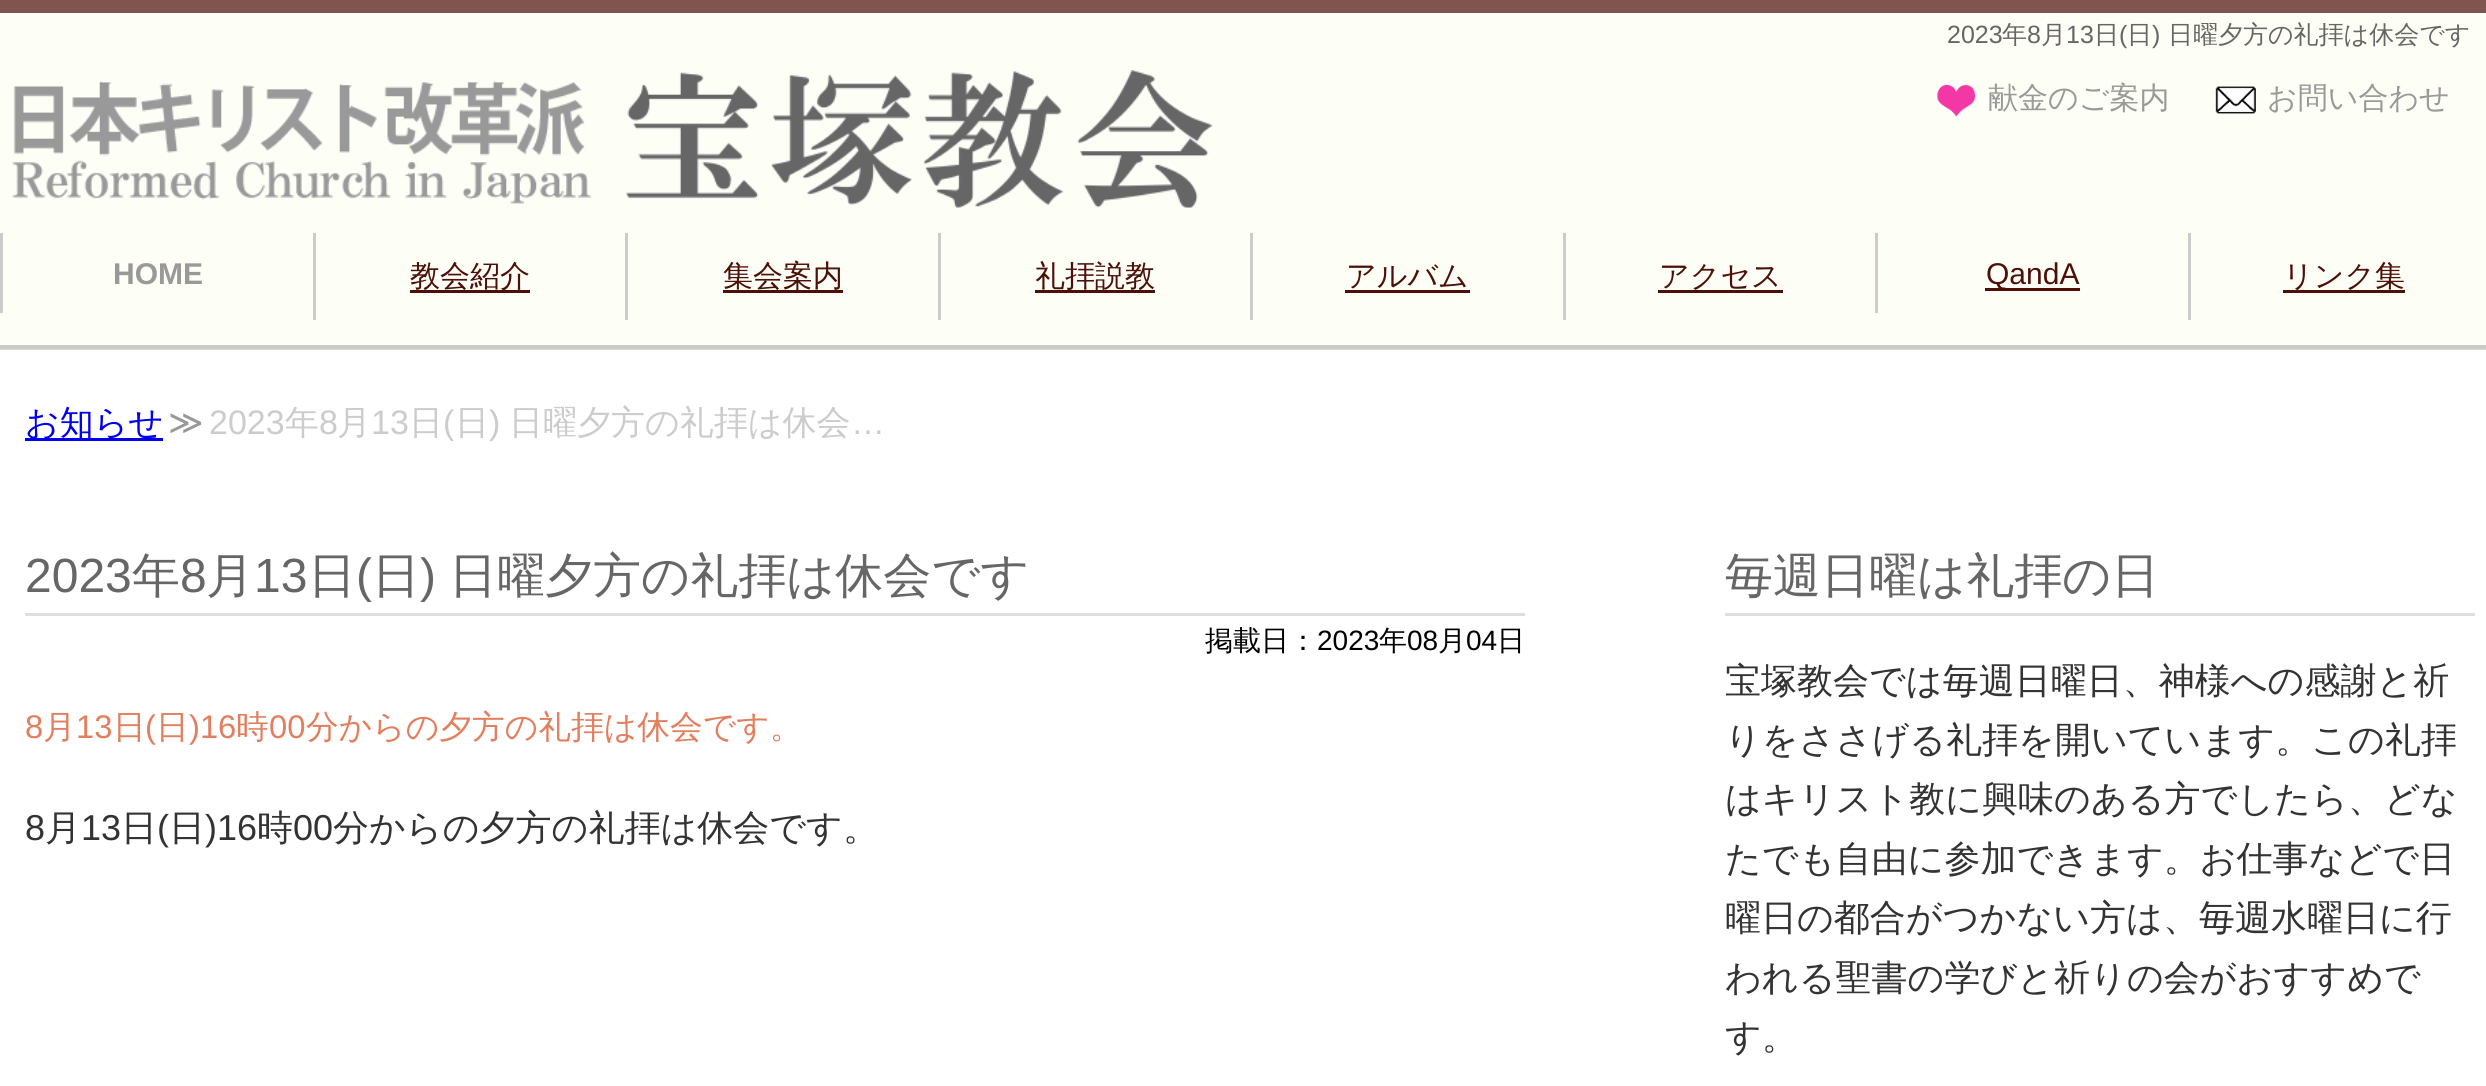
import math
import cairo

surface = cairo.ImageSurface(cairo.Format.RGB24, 2486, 1086)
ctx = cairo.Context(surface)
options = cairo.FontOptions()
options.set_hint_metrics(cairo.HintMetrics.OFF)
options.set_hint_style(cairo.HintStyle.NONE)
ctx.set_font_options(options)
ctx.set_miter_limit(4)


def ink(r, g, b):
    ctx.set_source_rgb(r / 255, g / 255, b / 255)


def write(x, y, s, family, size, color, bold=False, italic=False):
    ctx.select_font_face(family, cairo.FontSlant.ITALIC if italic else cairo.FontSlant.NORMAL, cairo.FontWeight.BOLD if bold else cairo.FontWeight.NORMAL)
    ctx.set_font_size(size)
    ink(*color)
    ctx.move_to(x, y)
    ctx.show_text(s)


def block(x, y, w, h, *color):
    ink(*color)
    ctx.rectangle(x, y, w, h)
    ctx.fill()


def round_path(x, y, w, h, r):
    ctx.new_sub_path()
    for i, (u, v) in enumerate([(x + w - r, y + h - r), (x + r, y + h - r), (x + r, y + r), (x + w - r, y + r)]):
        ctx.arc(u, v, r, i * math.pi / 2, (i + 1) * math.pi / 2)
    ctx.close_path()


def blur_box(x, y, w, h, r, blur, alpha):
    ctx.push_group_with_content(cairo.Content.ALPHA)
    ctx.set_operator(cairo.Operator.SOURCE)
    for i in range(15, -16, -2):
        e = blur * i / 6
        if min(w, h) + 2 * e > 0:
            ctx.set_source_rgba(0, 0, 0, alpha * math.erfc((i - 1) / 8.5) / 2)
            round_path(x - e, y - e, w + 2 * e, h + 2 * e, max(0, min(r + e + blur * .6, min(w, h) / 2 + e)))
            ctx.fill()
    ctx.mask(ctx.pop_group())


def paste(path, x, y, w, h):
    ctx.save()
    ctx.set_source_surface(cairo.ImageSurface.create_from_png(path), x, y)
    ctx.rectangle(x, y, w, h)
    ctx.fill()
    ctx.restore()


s1 = dict(family="Liberation Sans", size=25, color=(102, 102, 102))
s2 = dict(family="WenQuanYi Zen Hei Medium", size=25, color=(102, 102, 102))
s3 = dict(family="WenQuanYi Zen Hei Medium", size=30, color=(153, 153, 153))
s4 = dict(family="Liberation Sans", size=30, color=(153, 153, 153), bold=True)
s5 = dict(family="WenQuanYi Zen Hei Medium", size=30, color=(77, 16, 9))
s6 = dict(family="Liberation Sans", size=30, color=(77, 16, 9))
s7 = dict(family="WenQuanYi Zen Hei Medium", size=34, color=(0, 0, 238))
s8 = dict(family="DejaVu Sans", size=34, color=(153, 153, 153))
s9 = dict(family="Liberation Sans", size=34, color=(204, 204, 204))
s10 = dict(family="WenQuanYi Zen Hei Medium", size=34, color=(204, 204, 204))
s11 = dict(family="Liberation Sans", size=48, color=(102, 102, 102))
s12 = dict(family="WenQuanYi Zen Hei Medium", size=48, color=(102, 102, 102))
s13 = dict(family="WenQuanYi Zen Hei Medium", size=28, color=(0, 0, 0))
s14 = dict(family="Liberation Sans", size=28, color=(0, 0, 0))
s15 = dict(family="Liberation Sans", size=32.75, color=(225, 127, 94))
s16 = dict(family="WenQuanYi Zen Hei Medium", size=32.75, color=(225, 127, 94))
s17 = dict(family="Liberation Sans", size=36, color=(51, 51, 51))
s18 = dict(family="WenQuanYi Zen Hei Medium", size=36, color=(51, 51, 51))

ink(255, 255, 255)
ctx.paint()
ink(201, 201, 201)
blur_box(-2, 0, 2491, 350, 0, 1, 1)
block(0, 13, 2486, 332, 253, 254, 246)
block(0, 0, 2486, 13, 128, 85, 78)
write(1947, 43, "2023", **s1)
write(2002, 43, "年", **s2)
write(2027, 43, "8", **s1)
write(2041, 43, "月", **s2)
write(2066, 43, "13", **s1)
write(2094, 43, "日", **s2)
write(2119, 43, "(", **s1)
write(2127, 43, "日", **s2)
write(2152, 43, ")", **s1)
write(2168, 43, "日曜夕方の礼拝は休会です", **s2)
paste("pic1.png", 12, 70, 1201, 138)
paste("pic2.png", 1937, 84, 39, 33)
write(1988, 108, "献金のご案内", **s3)
paste("pic3.png", 2215, 86, 41, 28)
write(2267, 108, "お問い合わせ", **s3)
block(0, 233, 3, 80, 204, 204, 204)
write(113, 284, "HOME", **s4)
block(313, 233, 3, 87, 204, 204, 204)
block(410, 290, 120, 3, 77, 16, 9)
write(410, 286, "教会紹介", **s5)
block(625, 233, 3, 87, 204, 204, 204)
block(723, 290, 120, 3, 77, 16, 9)
write(723, 286, "集会案内", **s5)
block(938, 233, 3, 87, 204, 204, 204)
block(1035, 290, 120, 3, 77, 16, 9)
write(1035, 286, "礼拝説教", **s5)
block(1250, 233, 3, 87, 204, 204, 204)
write(1346, 286, "アルバム", **s5)
block(1345, 290, 125, 3, 77, 16, 9)
block(1563, 233, 3, 87, 204, 204, 204)
write(1659, 286, "アクセス", **s5)
block(1658, 290, 125, 3, 77, 16, 9)
block(1875, 233, 3, 80, 204, 204, 204)
block(1985, 288, 95, 3, 77, 16, 9)
write(1986, 284, "QandA", **s6)
block(2188, 233, 3, 87, 204, 204, 204)
block(2283, 290, 122, 3, 77, 16, 9)
write(2283, 286, "リンク集", **s5)
block(0, 350, 2486, 2, 255, 255, 255)
block(25, 438, 138, 3, 0, 0, 238)
write(25, 434, "お知らせ", **s7)
write(168, 434, "≫", **s8)
write(209, 434, "2023", **s9)
write(285, 434, "年", **s10)
write(319, 434, "8", **s9)
write(337, 434, "月", **s10)
write(371, 434, "13", **s9)
write(409, 434, "日", **s10)
write(443, 434, "(", **s9)
write(455, 434, "日", **s10)
write(489, 434, ")", **s9)
write(509, 434, "日曜夕方の礼拝は休会", **s10)
write(851, 434, "…", **s9)
block(25, 613, 1500, 3, 222, 222, 222)
write(25, 592, "2023", **s11)
write(132, 592, "年", **s12)
write(180, 592, "8", **s11)
write(206, 592, "月", **s12)
write(254, 592, "13", **s11)
write(308, 592, "日", **s12)
write(356, 592, "(", **s11)
write(372, 592, "日", **s12)
write(420, 592, ")", **s11)
write(449, 592, "日曜夕方の礼拝は休会です", **s12)
write(1205, 650, "掲載日：", **s13)
write(1317, 650, "2023", **s14)
write(1379, 650, "年", **s13)
write(1407, 650, "08", **s14)
write(1438, 650, "月", **s13)
write(1466, 650, "04", **s14)
write(1497, 650, "日", **s13)
write(25, 738, "8", **s15)
write(43, 738, "月", **s16)
write(76, 738, "13", **s15)
write(113, 738, "日", **s16)
write(145, 738, "(", **s15)
write(156, 738, "日", **s16)
write(189, 738, ")16", **s15)
write(236, 738, "時", **s16)
write(269, 738, "00", **s15)
write(306, 738, "分からの夕方の礼拝は休会です。", **s16)
write(25, 840, "8", **s17)
write(45, 840, "月", **s18)
write(81, 840, "13", **s17)
write(121, 840, "日", **s18)
write(157, 840, "(", **s17)
write(169, 840, "日", **s18)
write(205, 840, ")16", **s17)
write(257, 840, "時", **s18)
write(293, 840, "00", **s17)
write(333, 840, "分からの夕方の礼拝は休会です。", **s18)
block(1725, 613, 750, 3, 222, 222, 222)
write(1725, 592, "毎週日曜は礼拝の日", **s12)
write(1725, 693, "宝塚教会では毎週日曜日、神様への感謝と祈", **s18)
write(1725, 752, "りをささげる礼拝を開いています。この礼拝", **s18)
write(1725, 811, "はキリスト教に興味のある方でしたら、どな", **s18)
write(1725, 871, "たでも自由に参加できます。お仕事などで日", **s18)
write(1725, 930, "曜日の都合がつかない方は、毎週水曜日に行", **s18)
write(1725, 990, "われる聖書の学びと祈りの会がおすすめで", **s18)
write(1725, 1049, "す。", **s18)
surface.write_to_png("screenshot.png")
